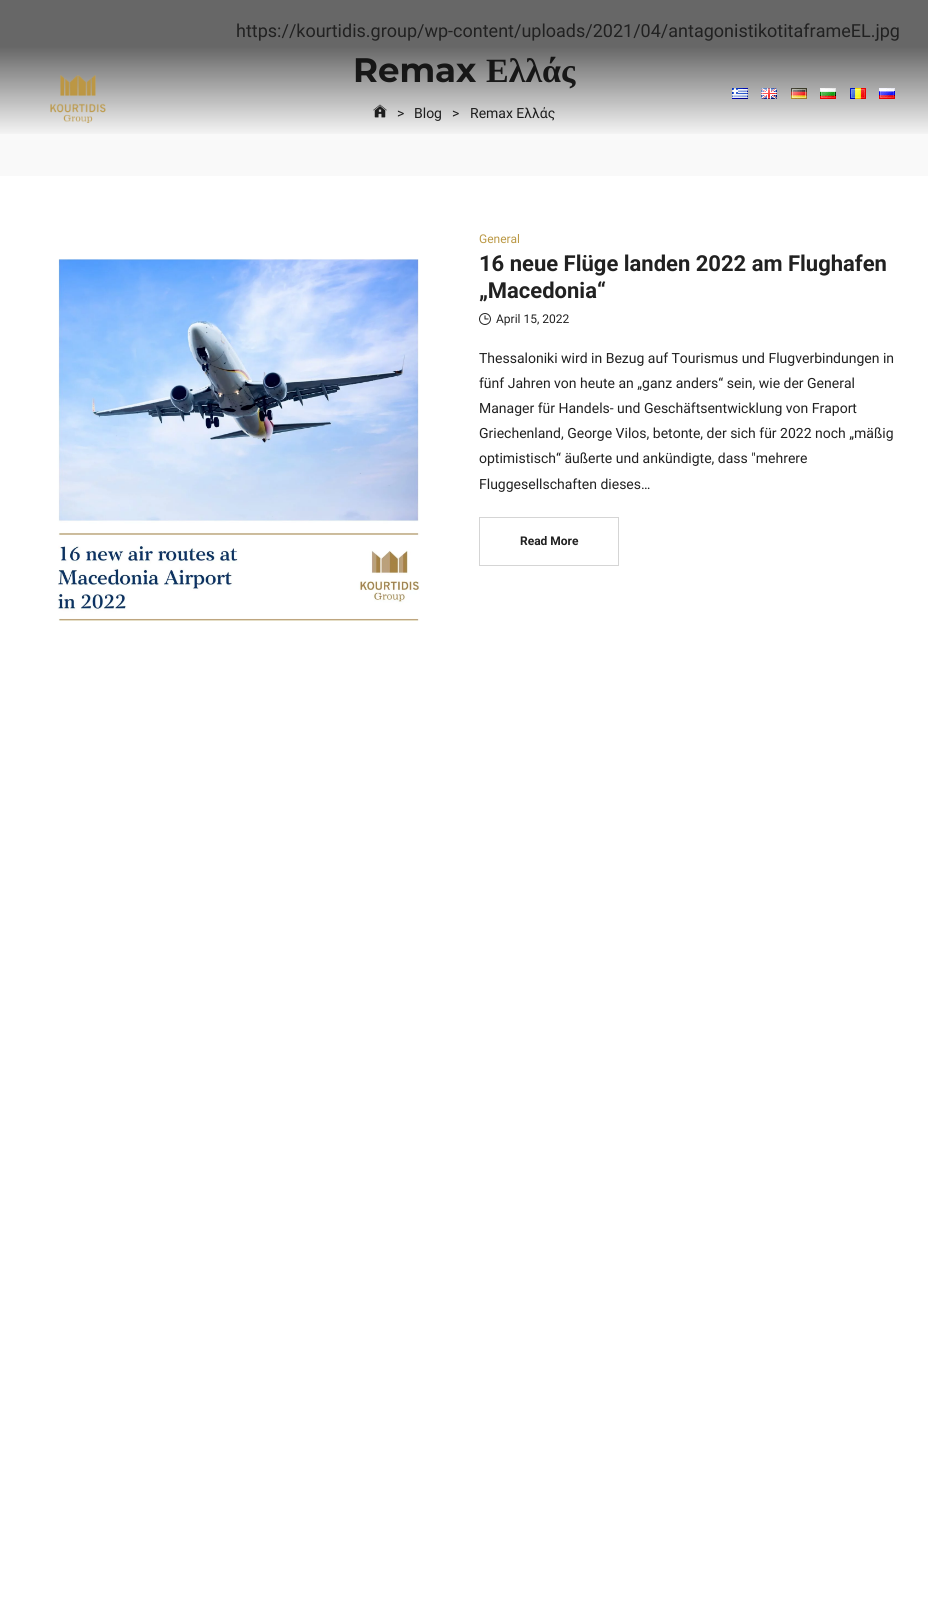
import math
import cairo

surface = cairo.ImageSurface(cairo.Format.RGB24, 928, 1598)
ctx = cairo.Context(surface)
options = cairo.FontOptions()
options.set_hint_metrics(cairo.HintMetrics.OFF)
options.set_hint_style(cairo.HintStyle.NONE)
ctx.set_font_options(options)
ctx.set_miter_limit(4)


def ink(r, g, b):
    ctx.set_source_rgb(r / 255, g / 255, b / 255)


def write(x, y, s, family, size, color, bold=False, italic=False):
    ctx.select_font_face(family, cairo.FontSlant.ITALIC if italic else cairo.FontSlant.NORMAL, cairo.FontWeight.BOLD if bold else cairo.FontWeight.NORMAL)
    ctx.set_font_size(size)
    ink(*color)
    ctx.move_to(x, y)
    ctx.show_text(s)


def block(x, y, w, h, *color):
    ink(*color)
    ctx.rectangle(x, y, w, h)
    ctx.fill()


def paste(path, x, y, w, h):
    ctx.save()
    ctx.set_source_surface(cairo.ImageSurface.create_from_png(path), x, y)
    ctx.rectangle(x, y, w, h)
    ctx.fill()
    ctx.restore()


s1 = dict(family="Roboto", size=18, color=(33, 33, 33))
s2 = dict(family="Montserrat", size=34, color=(33, 33, 33), bold=True)
s3 = dict(family="Liberation Serif", size=34, color=(33, 33, 33), bold=True)
s4 = dict(family="Roboto", size=14, color=(33, 33, 33))
s5 = dict(family="Roboto", size=12, color=(187, 153, 70))
s6 = dict(family="Roboto", size=22, color=(33, 33, 33), bold=True)
s7 = dict(family="Roboto", size=12, color=(33, 33, 33))
s8 = dict(family="Roboto", size=12, color=(33, 33, 33), bold=True)

ink(255, 255, 255)
ctx.paint()
block(0, 0, 928, 47, 103, 103, 103)
write(236, 37, "https://kourtidis.group/wp-content/uploads/2021/04/antagonistikotitaframeEL.jpg", **s1)
block(0, 47, 928, 129, 249, 249, 249)
write(353, 82, "Remax", **s2)
write(486, 82, "Ελλάς", **s3)
paste("pic8.png", 373, 104, 14, 14)
write(397, 118, ">", **s4)
write(414, 118, "Blog", **s4)
write(452, 118, ">", **s4)
write(470, 118, "Remax Ελλάς", **s4)
gradient = cairo.LinearGradient(464, 47, 464, 137)
gradient.add_color_stop_rgba(0, 0.039, 0.039, 0.039, 0.61)
gradient.add_color_stop_rgba(1, 0.039, 0.039, 0.039, 0)
ctx.set_source(gradient)
ctx.rectangle(0, 47, 928, 87)
ctx.fill()
paste("pic1.png", 50, 75, 56, 48)
paste("pic2.png", 732, 88, 16, 11)
paste("pic3.png", 761, 88, 16, 11)
paste("pic4.png", 791, 88, 16, 11)
paste("pic5.png", 820, 88, 16, 11)
paste("pic6.png", 850, 88, 16, 11)
paste("pic7.png", 879, 88, 16, 11)
paste("pic9.png", 57, 259, 363, 362)
write(479, 243, "General", **s5)
write(479, 271, "16 neue Flüge landen 2022 am Flughafen", **s6)
write(479, 298, "„Macedonia“", **s6)
paste("pic10.png", 479, 313, 12, 12)
write(496, 323, "April 15, 2022", **s7)
write(479, 363, "Thessaloniki wird in Bezug auf Tourismus und Flugverbindungen in", **s4)
write(479, 388, "fünf Jahren von heute an „ganz anders“ sein, wie der General", **s4)
write(479, 413, "Manager für Handels- und Geschäftsentwicklung von Fraport", **s4)
write(479, 438, "Griechenland, George Vilos, betonte, der sich für 2022 noch „mäßig", **s4)
write(479, 463, "optimistisch“ äußerte und ankündigte, dass \"mehrere", **s4)
write(479, 489, "Fluggesellschaften dieses…", **s4)
ctx.rectangle(479.5, 517.5, 139, 48)
ink(213, 213, 213)
ctx.set_line_width(1)
ctx.stroke()
write(520, 545, "Read More", **s8)
surface.write_to_png("screenshot.png")
